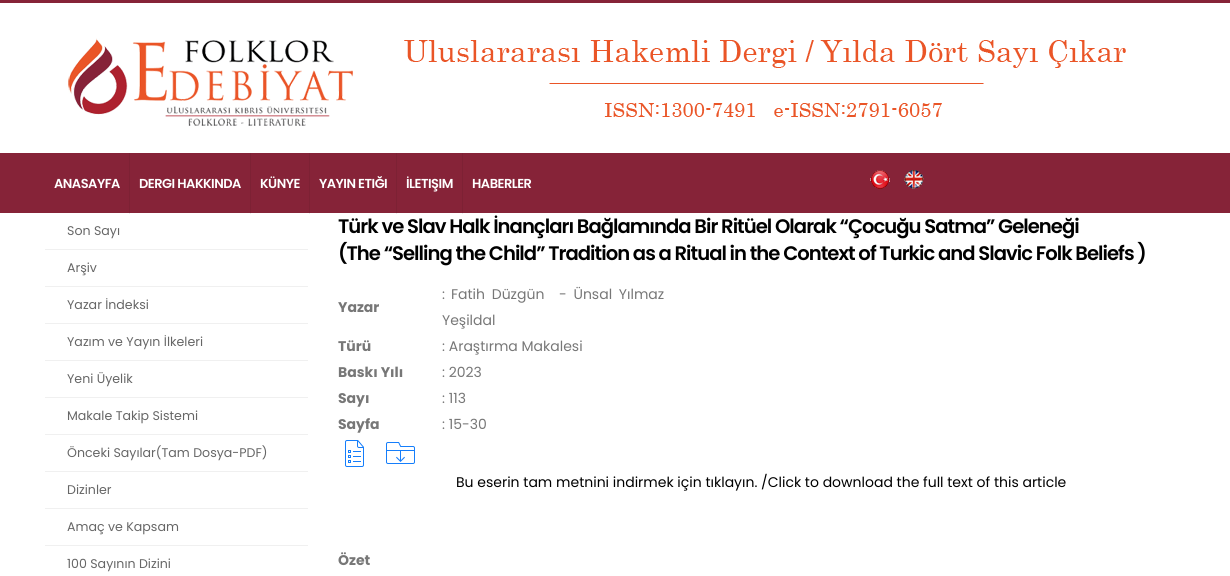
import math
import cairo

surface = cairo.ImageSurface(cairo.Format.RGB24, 1230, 576)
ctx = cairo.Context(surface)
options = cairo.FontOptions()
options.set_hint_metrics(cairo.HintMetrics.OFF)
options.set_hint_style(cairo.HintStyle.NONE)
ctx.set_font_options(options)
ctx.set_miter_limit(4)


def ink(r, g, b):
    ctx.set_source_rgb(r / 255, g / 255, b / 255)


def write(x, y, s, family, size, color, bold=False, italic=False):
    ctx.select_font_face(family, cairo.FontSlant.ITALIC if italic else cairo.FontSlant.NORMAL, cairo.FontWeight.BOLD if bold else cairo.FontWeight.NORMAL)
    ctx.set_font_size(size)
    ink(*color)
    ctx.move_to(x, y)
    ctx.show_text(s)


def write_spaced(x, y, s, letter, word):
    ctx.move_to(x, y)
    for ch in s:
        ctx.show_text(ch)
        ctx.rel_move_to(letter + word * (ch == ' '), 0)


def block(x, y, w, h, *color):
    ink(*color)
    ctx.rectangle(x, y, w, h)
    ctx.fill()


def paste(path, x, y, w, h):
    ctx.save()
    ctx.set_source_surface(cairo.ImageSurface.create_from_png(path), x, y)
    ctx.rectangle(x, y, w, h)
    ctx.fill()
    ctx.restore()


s1 = dict(family="Poppins", size=12.6, color=(102, 102, 102))
s2 = dict(family="Poppins", size=14, color=(119, 119, 119), bold=True)
s3 = dict(family="Poppins", size=14, color=(119, 119, 119))
s4 = dict(family="Poppins", size=14, color=(0, 0, 0))

ink(255, 255, 255)
ctx.paint()
block(462, 213, 1, 1, 237, 237, 237)
block(396, 213, 1, 1, 237, 237, 237)
block(309, 213, 1, 1, 237, 237, 237)
block(250, 213, 1, 1, 237, 237, 237)
block(129, 213, 1, 1, 237, 237, 237)
block(0, 0, 1230, 3, 134, 35, 56)
paste("pic1.png", 68, 38, 1058, 88)
block(0, 153, 1230, 60, 134, 35, 56)
block(462, 153, 1, 60, 125, 33, 52)
block(396, 153, 1, 60, 125, 33, 52)
block(309, 153, 1, 60, 125, 33, 52)
block(250, 153, 1, 60, 125, 33, 52)
block(129, 153, 1, 60, 125, 33, 52)
ctx.select_font_face("Poppins SemiBold")
ctx.set_font_size(13)
ink(255, 255, 255)
write_spaced(54, 188, "ANASAYFA", -0.5, 0)
write_spaced(139, 188, "DERGI HAKKINDA", -0.5, 0)
write_spaced(260, 188, "KÜNYE", -0.5, 0)
write_spaced(319, 188, "YAYIN ETIĞI", -0.5, 0)
write_spaced(406, 188, "İLETIŞIM", -0.5, 0)
write_spaced(472, 188, "HABERLER", -0.5, 0)
paste("pic2.png", 870, 170, 20, 19)
paste("pic3.png", 904, 170, 20, 19)
block(45, 249, 263, 1, 240, 240, 240)
write(67, 235, "Son Sayı", **s1)
block(45, 286, 263, 1, 240, 240, 240)
write(67, 272, "Arşiv", **s1)
block(45, 323, 263, 1, 240, 240, 240)
write(67, 309, "Yazar İndeksi", **s1)
block(45, 360, 263, 1, 240, 240, 240)
write(67, 346, "Yazım ve Yayın İlkeleri", **s1)
block(45, 397, 263, 1, 240, 240, 240)
write(67, 383, "Yeni Üyelik", **s1)
block(45, 434, 263, 1, 240, 240, 240)
write(67, 420, "Makale Takip Sistemi", **s1)
block(45, 471, 263, 1, 240, 240, 240)
write(67, 457, "Önceki Sayılar(Tam Dosya-PDF)", **s1)
block(45, 508, 263, 1, 240, 240, 240)
write(67, 494, "Dizinler", **s1)
block(45, 545, 263, 1, 240, 240, 240)
write(67, 531, "Amaç ve Kapsam", **s1)
write(67, 568, "100 Sayının Dizini", **s1)
ctx.select_font_face("Poppins SemiBold")
ctx.set_font_size(19.6)
ink(0, 0, 0)
write_spaced(338, 233, "Türk ve Slav Halk İnançları Bağlamında Bir Ritüel Olarak “Çocuğu Satma” Geleneği", -0.98, 0)
write_spaced(338, 260, "(The “Selling the Child” Tradition as a Ritual in the Context of Turkic and Slavic Folk Beliefs )", -0.98, 0)
write(338, 312, "Yazar", **s2)
write(442, 299, ":", **s3)
write_spaced(451, 299, "Fatih Düzgün", 0, 3)
write_spaced(559, 299, "- Ünsal Yılmaz", 0, 3)
write(442, 325, "Yeşildal", **s3)
write(338, 351, "Türü", **s2)
write(442, 351, ": Araştırma Makalesi", **s3)
write(338, 377, "Baskı Yılı", **s2)
write(442, 377, ": 2023", **s3)
write(338, 403, "Sayı", **s2)
write(442, 403, ": 113", **s3)
write(338, 429, "Sayfa", **s2)
write(442, 429, ": 15-30", **s3)
paste("pic4.png", 345, 440, 19, 27)
paste("pic5.png", 386, 442, 29, 22)
write(456, 487, "Bu eserin tam metnini indirmek için tıklayın. /Click to download the full text of this article", **s4)
write(338, 565, "Özet", **s2)
surface.write_to_png("screenshot.png")
